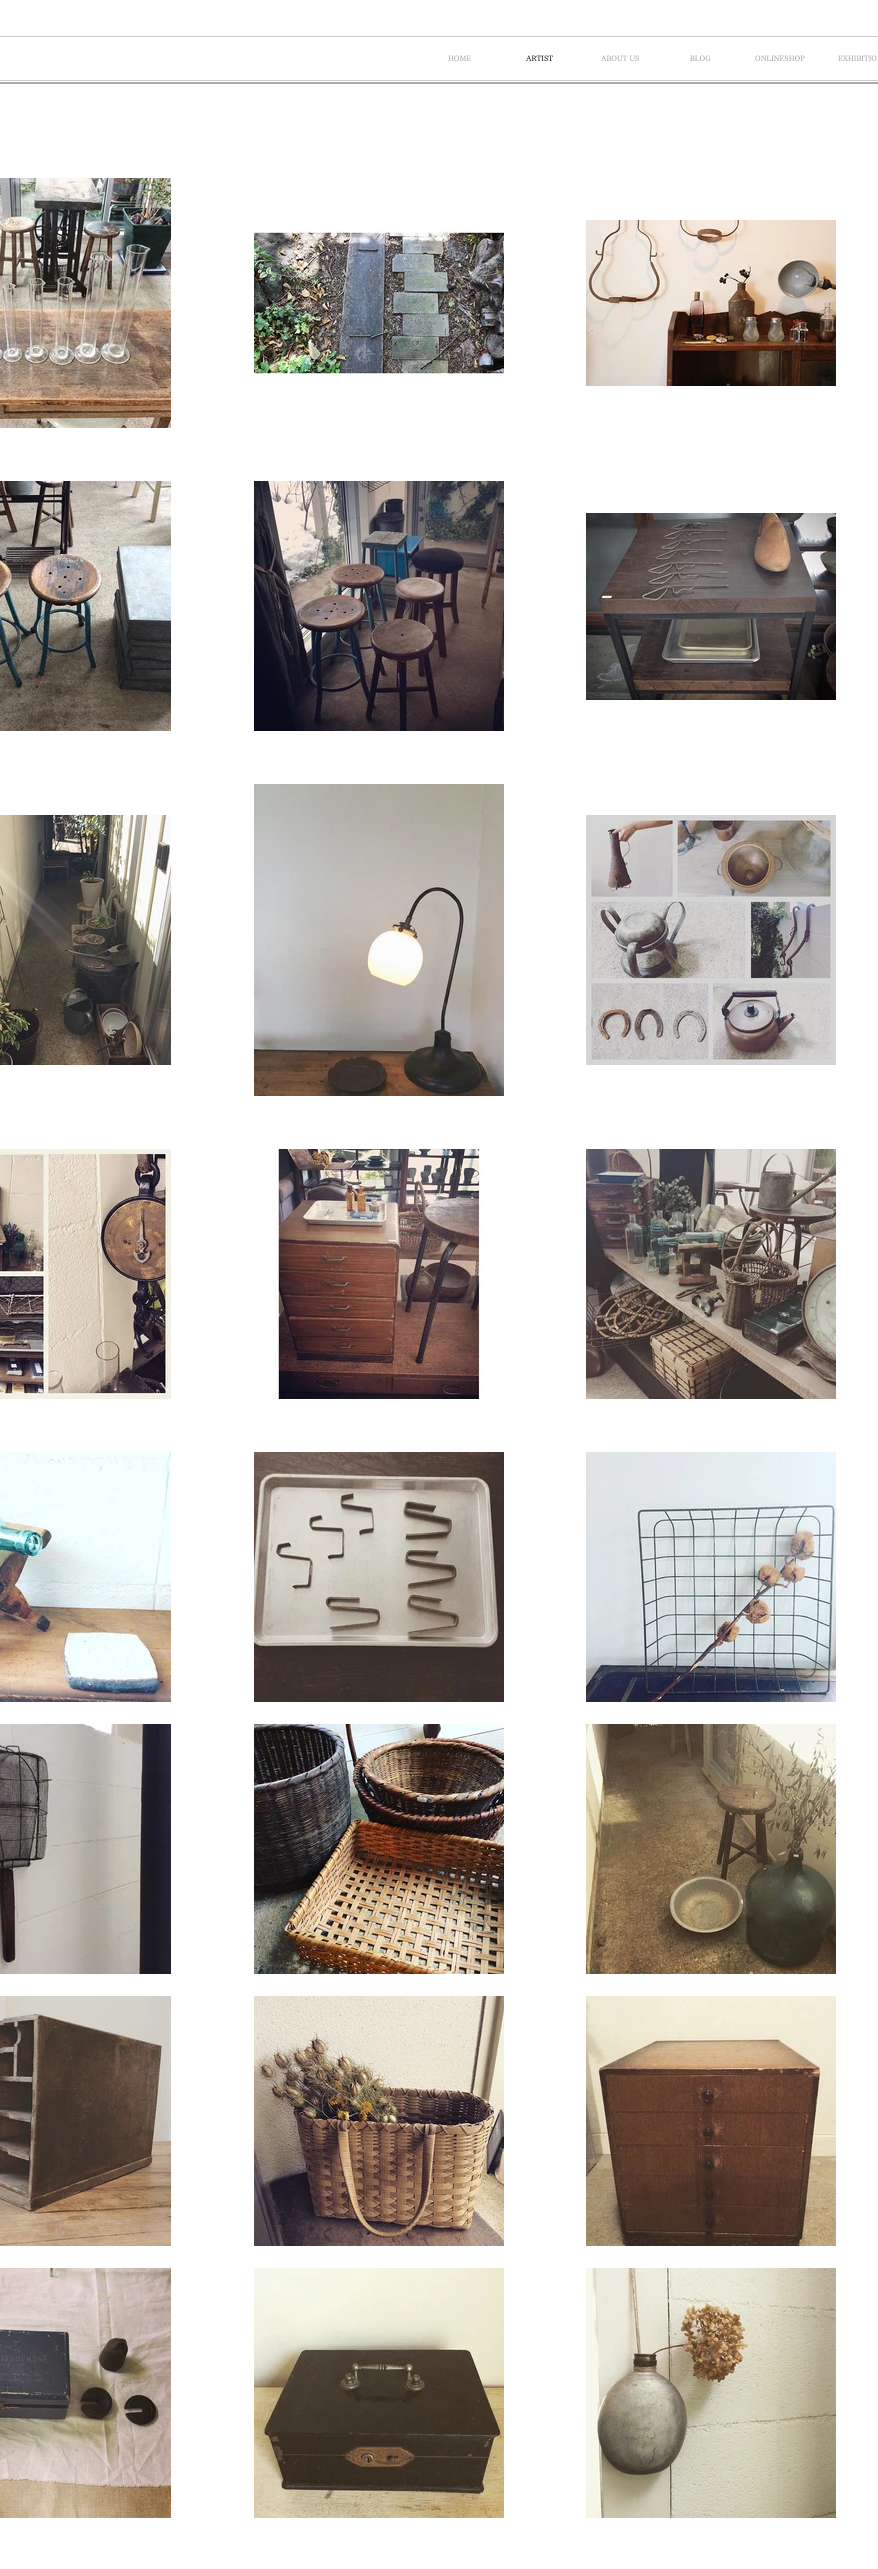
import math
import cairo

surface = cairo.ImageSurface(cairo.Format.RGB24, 878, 2569)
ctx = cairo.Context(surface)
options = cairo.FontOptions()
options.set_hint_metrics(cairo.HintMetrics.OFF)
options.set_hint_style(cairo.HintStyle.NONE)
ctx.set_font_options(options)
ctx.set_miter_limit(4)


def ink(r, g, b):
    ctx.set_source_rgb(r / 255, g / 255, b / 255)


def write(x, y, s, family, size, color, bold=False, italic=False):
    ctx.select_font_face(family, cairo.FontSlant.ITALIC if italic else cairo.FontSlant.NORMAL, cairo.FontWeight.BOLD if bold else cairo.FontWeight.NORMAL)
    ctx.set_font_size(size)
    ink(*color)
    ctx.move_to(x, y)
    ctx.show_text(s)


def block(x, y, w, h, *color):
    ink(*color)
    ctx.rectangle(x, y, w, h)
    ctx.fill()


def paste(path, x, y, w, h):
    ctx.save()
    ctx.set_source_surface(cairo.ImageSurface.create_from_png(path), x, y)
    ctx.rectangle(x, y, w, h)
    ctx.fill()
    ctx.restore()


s1 = dict(family="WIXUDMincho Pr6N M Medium", size=7, color=(158, 158, 158))
s2 = dict(family="WIXUDMincho Pr6N M Medium", size=7, color=(0, 0, 0))

ink(255, 255, 255)
ctx.paint()
block(0, 36, 878, 1, 202, 202, 202)
block(0, 80, 878, 1, 202, 202, 202)
write(448, 61, "HOME", **s1)
write(526, 61, "ARTIST", **s2)
write(601, 61, "ABOUT US", **s1)
write(690, 61, "BLOG", **s1)
write(755, 61, "ONLINESHOP", **s1)
write(838, 61, "EXHIBITIO", **s1)
block(0, 82, 878, 2, 171, 170, 170)
paste("pic1.png", 0, 178, 171, 250)
paste("pic2.png", 254, 229, 250, 149)
paste("pic3.png", 586, 220, 250, 166)
paste("pic4.png", 0, 481, 171, 250)
paste("pic5.png", 254, 481, 250, 250)
paste("pic6.png", 586, 513, 250, 187)
paste("pic7.png", 0, 815, 171, 250)
paste("pic8.png", 254, 784, 250, 312)
paste("pic9.png", 586, 815, 250, 250)
paste("pic10.png", 0, 1149, 171, 250)
paste("pic11.png", 278, 1149, 206, 250)
paste("pic12.png", 586, 1149, 250, 250)
paste("pic13.png", 0, 1452, 171, 250)
paste("pic14.png", 254, 1452, 250, 250)
paste("pic15.png", 586, 1452, 250, 250)
paste("pic16.png", 0, 1724, 171, 250)
paste("pic17.png", 254, 1724, 250, 250)
paste("pic18.png", 586, 1724, 250, 250)
paste("pic19.png", 0, 1996, 171, 250)
paste("pic20.png", 254, 1996, 250, 250)
paste("pic21.png", 586, 1996, 250, 250)
paste("pic22.png", 0, 2268, 171, 250)
paste("pic23.png", 254, 2268, 250, 250)
paste("pic24.png", 586, 2268, 250, 250)
surface.write_to_png("screenshot.png")
